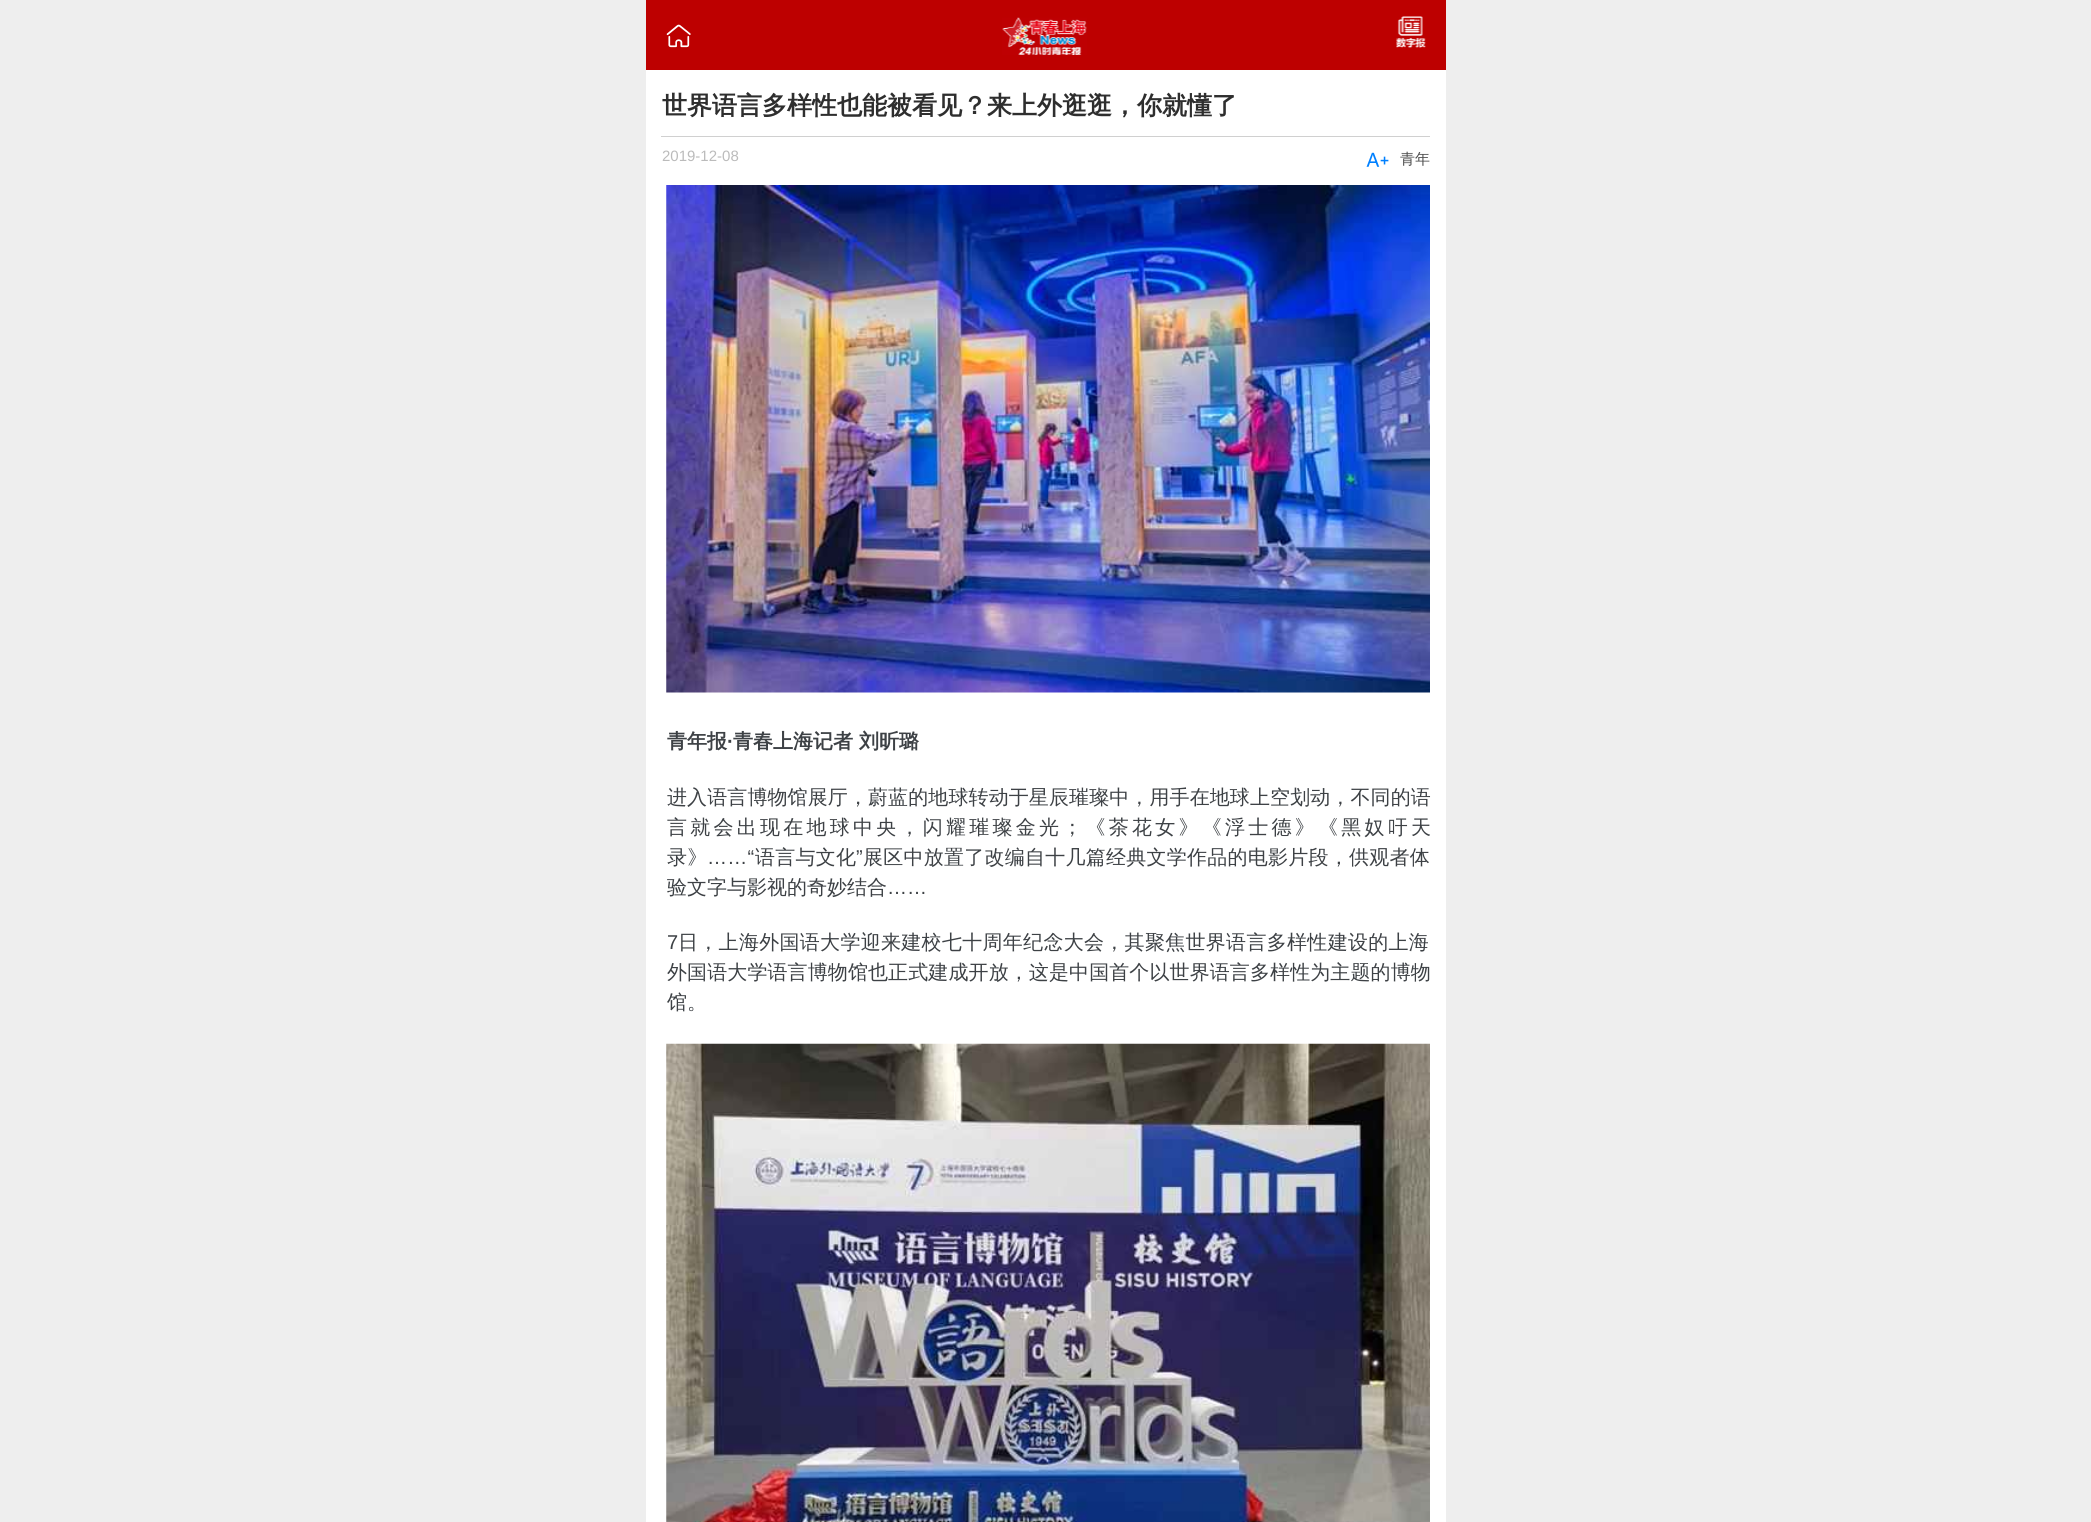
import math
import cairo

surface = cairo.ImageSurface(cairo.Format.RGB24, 2091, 1522)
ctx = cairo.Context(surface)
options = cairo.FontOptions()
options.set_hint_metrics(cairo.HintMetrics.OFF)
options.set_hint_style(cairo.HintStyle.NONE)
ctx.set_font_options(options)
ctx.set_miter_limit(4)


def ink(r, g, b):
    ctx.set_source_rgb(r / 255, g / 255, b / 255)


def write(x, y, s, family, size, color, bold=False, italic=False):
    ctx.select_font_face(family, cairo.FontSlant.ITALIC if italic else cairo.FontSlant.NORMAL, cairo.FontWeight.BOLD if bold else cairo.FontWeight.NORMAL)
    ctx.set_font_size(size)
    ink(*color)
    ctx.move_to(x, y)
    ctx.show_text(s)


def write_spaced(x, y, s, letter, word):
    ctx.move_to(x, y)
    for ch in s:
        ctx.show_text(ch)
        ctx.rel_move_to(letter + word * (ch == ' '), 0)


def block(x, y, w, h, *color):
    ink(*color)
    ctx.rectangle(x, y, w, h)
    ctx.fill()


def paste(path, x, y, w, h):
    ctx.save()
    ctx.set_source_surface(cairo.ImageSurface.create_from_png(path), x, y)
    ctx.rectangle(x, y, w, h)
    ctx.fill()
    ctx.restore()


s1 = dict(family="WenQuanYi Zen Hei", size=25, color=(46, 46, 46), bold=True)
s2 = dict(family="Liberation Sans", size=15, color=(187, 187, 187))
s3 = dict(family="WenQuanYi Zen Hei Medium", size=15, color=(76, 76, 76))
s4 = dict(family="WenQuanYi Zen Hei", size=20, color=(61, 65, 69), bold=True)
s5 = dict(family="Liberation Sans", size=20, color=(61, 65, 69), bold=True)
s6 = dict(family="WenQuanYi Zen Hei Medium", size=20, color=(61, 65, 69))
s7 = dict(family="Liberation Sans", size=20, color=(61, 65, 69))

ink(238, 238, 238)
ctx.paint()
block(646, 70, 800, 1452, 255, 255, 255)
block(646, 0, 800, 70, 189, 0, 0)
paste("pic1.png", 666, 24, 25, 24)
paste("pic2.png", 1002, 17, 85, 38)
paste("pic3.png", 1396, 16, 30, 32)
block(661, 136, 769, 1, 208, 208, 208)
write(662, 114, "世界语言多样性也能被看见？来上外逛逛，你就懂了", **s1)
write(662, 161, "2019-12-08", **s2)
paste("pic4.png", 1366, 152, 23, 15)
write(1400, 164, "青年", **s3)
paste("pic5.png", 666, 185, 764, 508)
write(667, 748, "青年报", **s4)
write(727, 748, "·", **s5)
write(733, 748, "青春上海记者 刘昕璐", **s4)
ctx.select_font_face("WenQuanYi Zen Hei Medium")
write_spaced(667, 804, "进入语言博物馆展厅，蔚蓝的地球转动于星辰璀璨中，用手在地球上空划动，不同的语", 0.1, 0)
write_spaced(667, 834, "言就会出现在地球中央，闪耀璀璨金光；《茶花女》《浮士德》《黑奴吁天", 3.25, 0)
write_spaced(667, 864, "录》", 0.25, 0)
ctx.select_font_face("Liberation Sans")
write_spaced(707, 864, "……“", 0.25, 0)
ctx.select_font_face("WenQuanYi Zen Hei Medium")
write_spaced(755, 864, "语言与文化", 0.25, 0)
ctx.select_font_face("Liberation Sans")
write_spaced(856, 864, "”", 0.25, 0)
ctx.select_font_face("WenQuanYi Zen Hei Medium")
write_spaced(863, 864, "展区中放置了改编自十几篇经典文学作品的电影片段，供观者体", 0.25, 0)
write(667, 894, "验文字与影视的奇妙结合", **s6)
write(887, 894, "……", **s7)
write_spaced(667, 949, "7", 0.3, 0)
ctx.select_font_face("WenQuanYi Zen Hei Medium")
write_spaced(678, 949, "日，上海外国语大学迎来建校七十周年纪念大会，其聚焦世界语言多样性建设的上海", 0.3, 0)
write_spaced(667, 979, "外国语大学语言博物馆也正式建成开放，这是中国首个以世界语言多样性为主题的博物", 0.1, 0)
write(667, 1009, "馆。", **s6)
paste("pic6.png", 666, 1043, 764, 479)
surface.write_to_png("screenshot.png")
